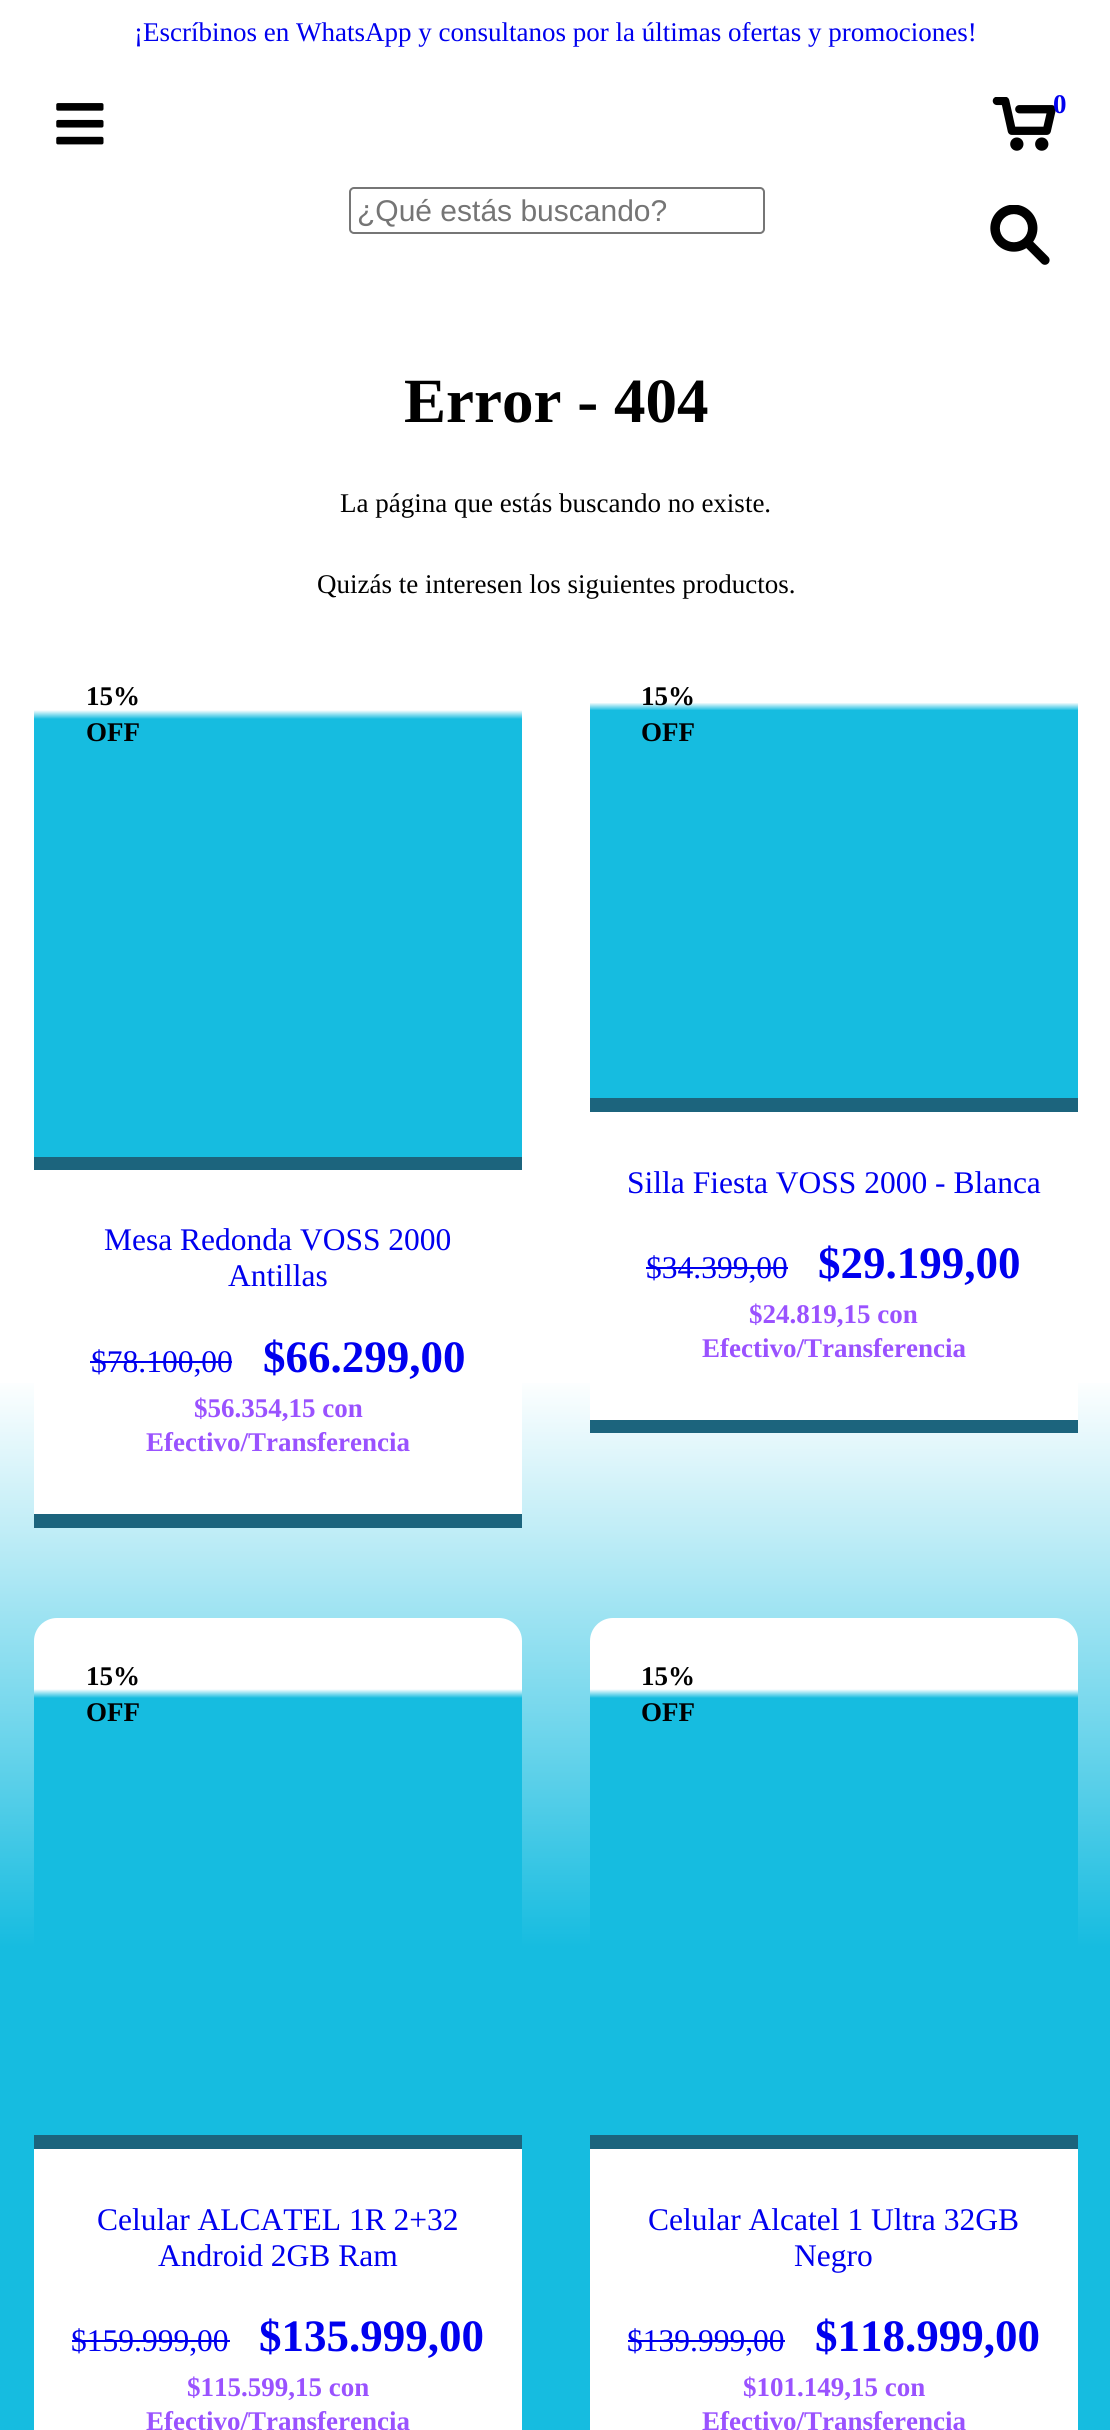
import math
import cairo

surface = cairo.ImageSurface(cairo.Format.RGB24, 1110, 2430)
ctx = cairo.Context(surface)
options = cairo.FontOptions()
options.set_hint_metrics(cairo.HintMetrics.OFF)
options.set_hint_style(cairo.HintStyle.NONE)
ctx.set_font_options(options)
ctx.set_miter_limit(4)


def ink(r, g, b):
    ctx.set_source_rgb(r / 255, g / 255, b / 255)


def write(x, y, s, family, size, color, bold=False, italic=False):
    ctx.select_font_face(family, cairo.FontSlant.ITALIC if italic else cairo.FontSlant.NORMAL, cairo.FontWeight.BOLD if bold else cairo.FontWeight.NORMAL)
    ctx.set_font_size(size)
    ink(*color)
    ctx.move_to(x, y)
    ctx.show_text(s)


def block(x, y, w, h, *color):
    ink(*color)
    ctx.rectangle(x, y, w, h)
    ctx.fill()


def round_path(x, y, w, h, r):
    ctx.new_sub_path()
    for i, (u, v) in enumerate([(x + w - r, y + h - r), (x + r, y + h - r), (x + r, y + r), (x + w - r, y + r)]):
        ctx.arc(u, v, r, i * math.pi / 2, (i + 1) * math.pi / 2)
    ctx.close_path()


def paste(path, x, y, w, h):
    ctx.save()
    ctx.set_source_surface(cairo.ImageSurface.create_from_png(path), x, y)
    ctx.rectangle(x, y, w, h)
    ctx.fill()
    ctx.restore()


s1 = dict(family="Liberation Serif", size=27, color=(0, 0, 238))
s2 = dict(family="Liberation Serif", size=27, color=(0, 0, 238), bold=True)
s3 = dict(family="Liberation Sans", size=30, color=(117, 117, 117))
s4 = dict(family="Liberation Serif", size=63, color=(0, 0, 0), bold=True)
s5 = dict(family="Liberation Serif", size=27, color=(0, 0, 0))
s6 = dict(family="Liberation Serif", size=27, color=(0, 0, 0), bold=True)
s7 = dict(family="Liberation Serif", size=31.5, color=(0, 0, 238))
s8 = dict(family="Liberation Serif", size=45, color=(0, 0, 238), bold=True)
s9 = dict(family="Liberation Serif", size=27, color=(154, 82, 255), bold=True)

ink(255, 255, 255)
ctx.paint()
gradient = cairo.LinearGradient(556, 0, 556, 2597)
gradient.add_color_stop_rgba(0.08, 1, 1, 1, 1)
gradient.add_color_stop_rgba(0.53, 1, 1, 1, 1)
gradient.add_color_stop_rgba(0.75, 0.086, 0.737, 0.878, 1)
ctx.set_source(gradient)
ctx.rectangle(0, 1383, 1110, 1047)
ctx.fill()
write(134, 41, "¡Escríbinos en WhatsApp y consultanos por la últimas ofertas y promociones!", **s1)
paste("pic1.png", 56, 103, 48, 42)
paste("pic2.png", 992, 97, 64, 54)
write(1053, 113, "0", **s2)
round_path(350, 188, 414, 45, 4)
ink(118, 118, 118)
ctx.stroke()
write(357, 221, "¿Qué estás buscando?", **s3)
paste("pic3.png", 990, 205, 60, 60)
write(404, 422, "Error - 404", **s4)
write(340, 512, "La página que estás buscando no existe.", **s5)
write(317, 593, "Quizás te interesen los siguientes productos.", **s5)
gradient = cairo.LinearGradient(278, 639, 278, 1528)
gradient.add_color_stop_rgba(0.08, 1, 1, 1, 1)
gradient.add_color_stop_rgba(0.09, 0.086, 0.737, 0.878, 1)
ctx.set_source(gradient)
round_path(34, 639, 488, 889, 23)
ctx.fill()
write(86, 705, "15%", **s6)
write(86, 741, "OFF", **s6)
block(34, 1170, 488, 344, 255, 255, 255)
block(34, 1157, 488, 13, 28, 100, 125)
block(34, 1514, 488, 14, 28, 100, 125)
write(104, 1250, "Mesa Redonda VOSS 2000", **s7)
write(228, 1286, "Antillas", **s7)
write(91, 1372, "$78.100,00", **s7)
block(90, 1361, 142, 2, 0, 0, 238)
write(263, 1372, "$66.299,00", **s8)
write(194, 1417, "$56.354,15 con", **s9)
write(146, 1451, "Efectivo/Transferencia", **s9)
gradient = cairo.LinearGradient(834, 639, 834, 1433)
gradient.add_color_stop_rgba(0.08, 1, 1, 1, 1)
gradient.add_color_stop_rgba(0.09, 0.086, 0.737, 0.878, 1)
ctx.set_source(gradient)
round_path(590, 639, 488, 794, 23)
ctx.fill()
write(641, 705, "15%", **s6)
write(641, 741, "OFF", **s6)
block(590, 1112, 488, 308, 255, 255, 255)
block(590, 1098, 488, 14, 28, 100, 125)
block(590, 1420, 488, 13, 28, 100, 125)
write(627, 1193, "Silla Fiesta VOSS 2000 - Blanca", **s7)
write(646, 1278, "$34.399,00", **s7)
block(646, 1267, 142, 2, 0, 0, 238)
write(818, 1278, "$29.199,00", **s8)
write(749, 1323, "$24.819,15 con", **s9)
write(702, 1357, "Efectivo/Transferencia", **s9)
gradient = cairo.LinearGradient(278, 1618, 278, 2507)
gradient.add_color_stop_rgba(0.08, 1, 1, 1, 1)
gradient.add_color_stop_rgba(0.09, 0.086, 0.737, 0.878, 1)
ctx.set_source(gradient)
round_path(34, 1618, 488, 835, 23)
ctx.fill()
write(86, 1685, "15%", **s6)
write(86, 1721, "OFF", **s6)
block(34, 2149, 488, 281, 255, 255, 255)
block(34, 2135, 488, 14, 28, 100, 125)
write(97, 2230, "Celular ALCATEL 1R 2+32", **s7)
write(158, 2266, "Android 2GB Ram", **s7)
write(71, 2351, "$159.999,00", **s7)
block(72, 2340, 158, 2, 0, 0, 238)
write(259, 2351, "$135.999,00", **s8)
write(187, 2396, "$115.599,15 con", **s9)
write(146, 2430, "Efectivo/Transferencia", **s9)
gradient = cairo.LinearGradient(834, 1618, 834, 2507)
gradient.add_color_stop_rgba(0.08, 1, 1, 1, 1)
gradient.add_color_stop_rgba(0.09, 0.086, 0.737, 0.878, 1)
ctx.set_source(gradient)
round_path(590, 1618, 488, 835, 23)
ctx.fill()
write(641, 1685, "15%", **s6)
write(641, 1721, "OFF", **s6)
block(590, 2149, 488, 281, 255, 255, 255)
block(590, 2135, 488, 14, 28, 100, 125)
write(648, 2230, "Celular Alcatel 1 Ultra 32GB", **s7)
write(794, 2266, "Negro", **s7)
write(627, 2351, "$139.999,00", **s7)
block(628, 2340, 157, 2, 0, 0, 238)
write(815, 2351, "$118.999,00", **s8)
write(743, 2396, "$101.149,15 con", **s9)
write(702, 2430, "Efectivo/Transferencia", **s9)
surface.write_to_png("screenshot.png")
